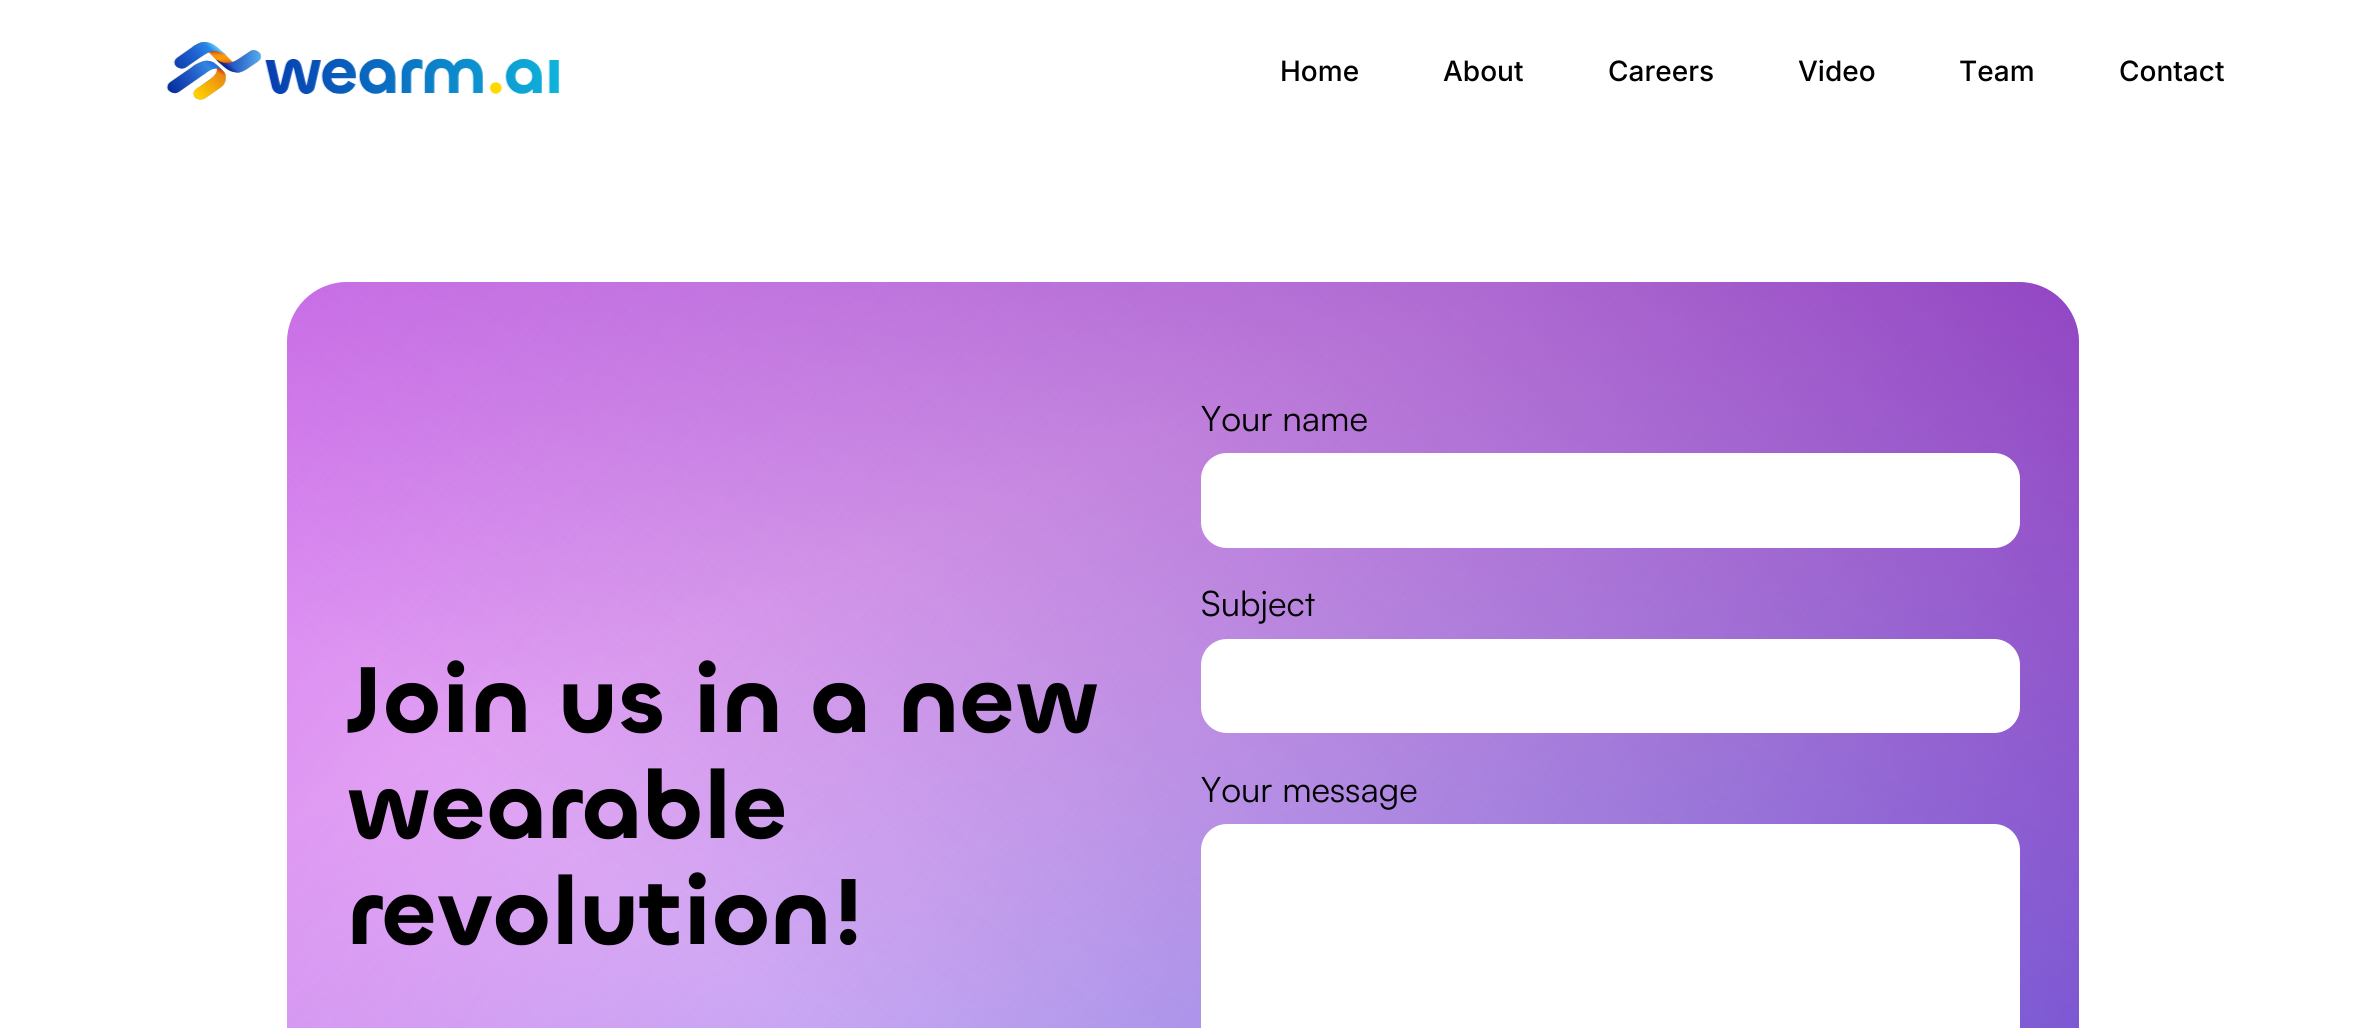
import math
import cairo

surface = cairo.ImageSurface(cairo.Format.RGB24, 2365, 1028)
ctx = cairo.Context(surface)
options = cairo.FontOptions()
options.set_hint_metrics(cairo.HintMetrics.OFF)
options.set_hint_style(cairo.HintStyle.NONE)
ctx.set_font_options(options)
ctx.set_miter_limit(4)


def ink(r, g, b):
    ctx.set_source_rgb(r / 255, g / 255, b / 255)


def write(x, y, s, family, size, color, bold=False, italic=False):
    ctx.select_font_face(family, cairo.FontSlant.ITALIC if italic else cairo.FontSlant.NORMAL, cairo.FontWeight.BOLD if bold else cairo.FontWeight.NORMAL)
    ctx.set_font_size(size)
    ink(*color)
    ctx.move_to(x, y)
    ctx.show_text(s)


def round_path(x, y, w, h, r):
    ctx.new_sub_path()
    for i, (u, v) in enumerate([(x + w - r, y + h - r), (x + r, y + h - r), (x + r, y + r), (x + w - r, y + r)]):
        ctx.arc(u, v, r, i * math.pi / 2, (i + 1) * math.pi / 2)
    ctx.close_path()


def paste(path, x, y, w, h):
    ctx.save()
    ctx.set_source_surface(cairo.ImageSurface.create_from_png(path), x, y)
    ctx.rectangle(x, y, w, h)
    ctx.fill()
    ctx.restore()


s1 = dict(family="Inter Medium", size=28, color=(0, 0, 0))
s2 = dict(family="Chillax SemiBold", size=96.25, color=(0, 0, 0))
s3 = dict(family="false", size=35, color=(0, 0, 0))

ink(255, 255, 255)
ctx.paint()
paste("pic1.png", 166, 42, 394, 58)
write(1280, 81, "Home", **s1)
write(1443, 81, "About", **s1)
write(1608, 81, "Careers", **s1)
write(1798, 81, "Video", **s1)
write(1959, 81, "Team", **s1)
write(2119, 81, "Contact", **s1)
gradient = cairo.LinearGradient(1526, 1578, 840, 36)
gradient.add_color_stop_rgba(0, 0.325, 0.384, 0.902, 1)
gradient.add_color_stop_rgba(0.71, 1, 1, 1, 1)
ctx.set_source(gradient)
round_path(287, 282, 1792, 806, 60)
ctx.fill()
gradient = cairo.LinearGradient(359, 186, 2007, 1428)
gradient.add_color_stop_rgba(0, 0.8, 0.361, 0.922, 0.8)
gradient.add_color_stop_rgba(0.71, 0.8, 0.361, 0.922, 0)
ctx.set_source(gradient)
round_path(287, 282, 1792, 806, 60)
ctx.fill()
gradient = cairo.LinearGradient(1760, 41, 606, 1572)
gradient.add_color_stop_rgba(0, 0.502, 0.122, 0.71, 0.8)
gradient.add_color_stop_rgba(0.71, 0.502, 0.122, 0.71, 0)
ctx.set_source(gradient)
round_path(287, 282, 1792, 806, 60)
ctx.fill()
write(347, 732, "Join us in a new", **s2)
write(347, 838, "wearable", **s2)
write(347, 944, "revolution!", **s2)
write(1201, 431, "Your name", **s3)
ink(255, 255, 255)
round_path(1201, 453, 819, 95, 26)
ctx.fill()
write(1201, 616, "Subject", **s3)
ink(255, 255, 255)
round_path(1201, 639, 819, 94, 26)
ctx.fill()
write(1201, 802, "Your message", **s3)
ink(255, 255, 255)
round_path(1201, 824, 819, 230, 26)
ctx.fill()
surface.write_to_png("screenshot.png")
